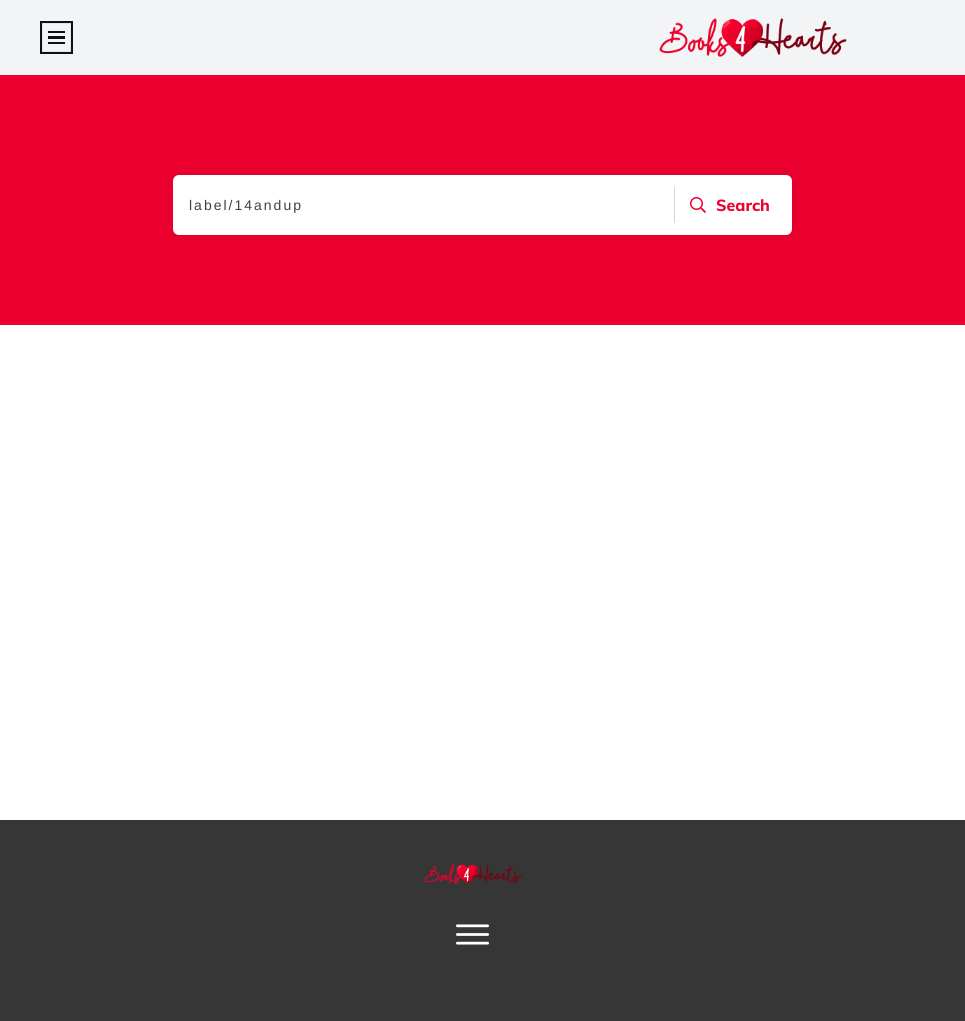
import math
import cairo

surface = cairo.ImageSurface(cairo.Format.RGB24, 965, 1021)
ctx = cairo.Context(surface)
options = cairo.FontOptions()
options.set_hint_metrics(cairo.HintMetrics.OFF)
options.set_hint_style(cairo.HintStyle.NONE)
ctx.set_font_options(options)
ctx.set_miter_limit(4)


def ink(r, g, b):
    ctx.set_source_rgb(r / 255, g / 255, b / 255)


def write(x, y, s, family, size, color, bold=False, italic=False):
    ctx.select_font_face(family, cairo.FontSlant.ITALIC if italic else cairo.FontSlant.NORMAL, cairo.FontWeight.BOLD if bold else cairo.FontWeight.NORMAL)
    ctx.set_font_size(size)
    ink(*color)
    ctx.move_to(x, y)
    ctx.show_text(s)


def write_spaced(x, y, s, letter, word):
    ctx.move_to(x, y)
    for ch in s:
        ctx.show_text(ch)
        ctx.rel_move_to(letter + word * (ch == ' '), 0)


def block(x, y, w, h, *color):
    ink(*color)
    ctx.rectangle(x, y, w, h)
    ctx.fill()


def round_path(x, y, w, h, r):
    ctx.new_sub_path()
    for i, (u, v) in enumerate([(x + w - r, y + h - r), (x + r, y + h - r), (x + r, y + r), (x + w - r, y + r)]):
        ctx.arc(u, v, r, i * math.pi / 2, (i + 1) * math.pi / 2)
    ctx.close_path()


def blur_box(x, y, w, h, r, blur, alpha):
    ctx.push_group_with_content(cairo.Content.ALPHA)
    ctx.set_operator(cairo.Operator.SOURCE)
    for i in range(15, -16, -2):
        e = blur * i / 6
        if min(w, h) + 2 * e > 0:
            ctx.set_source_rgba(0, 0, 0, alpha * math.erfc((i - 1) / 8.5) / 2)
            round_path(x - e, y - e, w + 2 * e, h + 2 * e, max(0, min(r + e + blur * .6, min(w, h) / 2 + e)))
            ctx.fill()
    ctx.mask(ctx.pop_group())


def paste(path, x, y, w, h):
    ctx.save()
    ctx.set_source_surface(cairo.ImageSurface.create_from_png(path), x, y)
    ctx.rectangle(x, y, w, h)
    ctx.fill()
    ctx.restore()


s1 = dict(family="Muli ExtraBold", size=16, color=(235, 0, 47))

ink(255, 255, 255)
ctx.paint()
block(0, 0, 965, 75, 242, 244, 245)
paste("pic1.png", 40, 21, 33, 33)
paste("pic2.png", 659, 18, 188, 39)
block(0, 75, 965, 250, 235, 0, 47)
ink(0, 0, 0)
blur_box(173, 175, 619, 60, 6, 5.5, 0.08)
ink(255, 255, 255)
round_path(173, 175, 619, 60, 6)
ctx.fill()
ctx.select_font_face("Liberation Sans")
ctx.set_font_size(14)
ink(64, 64, 64)
write_spaced(189, 210, "label/14andup", 2, 0)
block(674, 187, 1, 36, 214, 214, 214)
paste("pic3.png", 690, 197, 16, 16)
write(716, 211, "Search", **s1)
block(0, 820, 965, 201, 54, 54, 54)
paste("pic4.png", 424, 864, 98, 20)
paste("pic5.png", 456, 924, 33, 21)
surface.write_to_png("screenshot.png")
